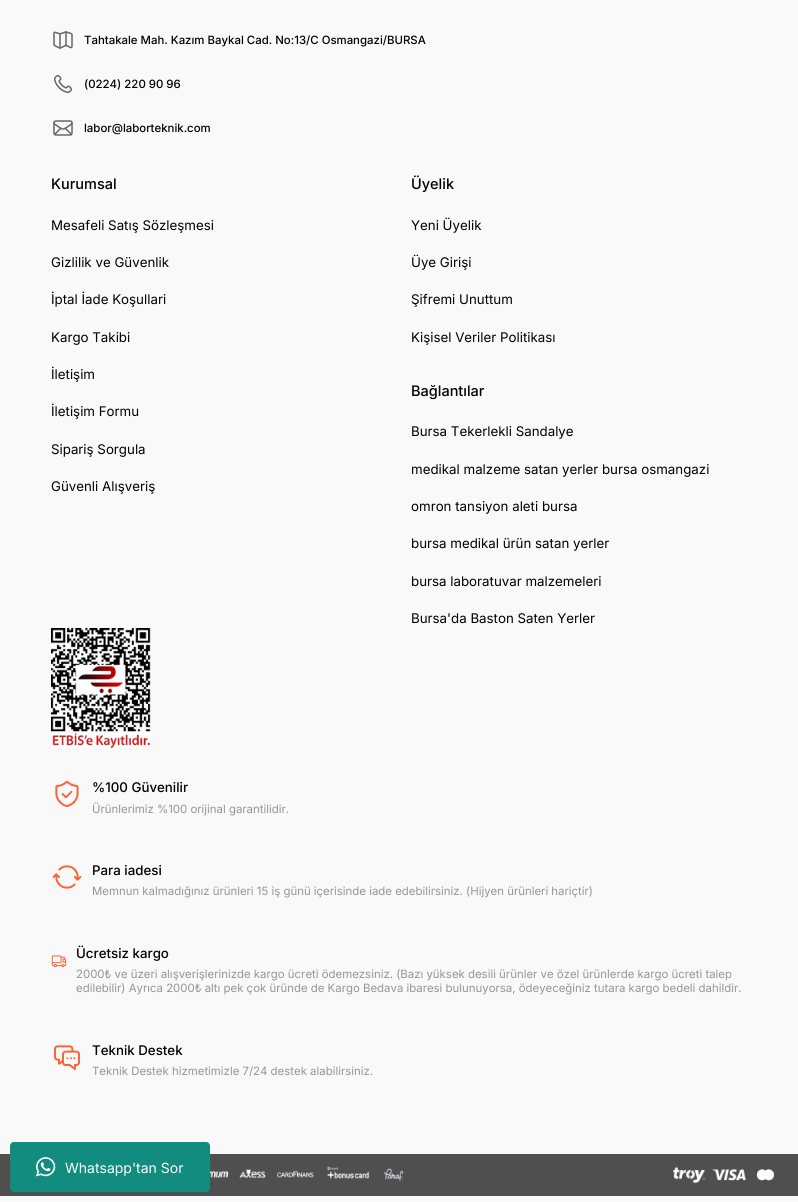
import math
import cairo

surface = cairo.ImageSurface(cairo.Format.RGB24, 798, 1202)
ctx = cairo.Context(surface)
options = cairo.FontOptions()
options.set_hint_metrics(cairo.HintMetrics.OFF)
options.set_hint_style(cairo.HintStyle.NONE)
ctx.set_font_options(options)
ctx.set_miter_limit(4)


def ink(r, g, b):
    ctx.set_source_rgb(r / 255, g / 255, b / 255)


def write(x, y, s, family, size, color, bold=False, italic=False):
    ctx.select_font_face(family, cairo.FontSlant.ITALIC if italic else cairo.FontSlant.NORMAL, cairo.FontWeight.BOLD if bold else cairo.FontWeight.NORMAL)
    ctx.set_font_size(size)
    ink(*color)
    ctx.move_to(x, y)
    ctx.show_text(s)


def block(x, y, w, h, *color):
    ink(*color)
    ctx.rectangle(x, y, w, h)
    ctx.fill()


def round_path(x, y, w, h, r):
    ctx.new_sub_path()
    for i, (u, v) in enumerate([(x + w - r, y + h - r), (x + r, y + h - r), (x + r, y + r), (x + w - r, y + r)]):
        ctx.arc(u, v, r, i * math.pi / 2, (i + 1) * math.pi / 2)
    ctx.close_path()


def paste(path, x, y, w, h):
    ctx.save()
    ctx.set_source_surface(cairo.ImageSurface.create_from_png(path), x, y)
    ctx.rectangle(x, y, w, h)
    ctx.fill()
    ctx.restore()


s1 = dict(family="Inter Medium", size=11.4, color=(0, 0, 0))
s2 = dict(family="Inter Medium", size=14.5, color=(0, 0, 0))
s3 = dict(family="Inter", size=13.3, color=(0, 0, 0))
s4 = dict(family="Inter Medium", size=13.3, color=(0, 0, 0))
s5 = dict(family="Inter", size=11.4, color=(149, 149, 149))
s6 = dict(family="Inter", size=14, color=(255, 255, 255))

ink(249, 249, 249)
ctx.paint()
paste("pic1.png", 53, 31, 20, 18)
write(84, 44, "Tahtakale Mah. Kazım Baykal Cad. No:13/C Osmangazi/BURSA", **s1)
paste("pic2.png", 54, 75, 18, 18)
write(84, 88, "(0224) 220 90 96", **s1)
paste("pic3.png", 53, 120, 20, 16)
write(84, 132, "labor@laborteknik.com", **s1)
write(51, 189, "Kurumsal", **s2)
write(51, 230, "Mesafeli Satış Sözleşmesi", **s3)
write(51, 267, "Gizlilik ve Güvenlik", **s3)
write(51, 304, "İptal İade Koşullari", **s3)
write(51, 342, "Kargo Takibi", **s3)
write(51, 379, "İletişim", **s3)
write(51, 416, "İletişim Formu", **s3)
write(51, 454, "Sipariş Sorgula", **s3)
write(51, 491, "Güvenli Alışveriş", **s3)
write(411, 189, "Üyelik", **s2)
write(411, 230, "Yeni Üyelik", **s3)
write(411, 267, "Üye Girişi", **s3)
write(411, 304, "Şifremi Unuttum", **s3)
write(411, 342, "Kişisel Veriler Politikası", **s3)
write(411, 396, "Bağlantılar", **s2)
write(411, 436, "Bursa Tekerlekli Sandalye", **s3)
write(411, 474, "medikal malzeme satan yerler bursa osmangazi", **s3)
write(411, 511, "omron tansiyon aleti bursa", **s3)
write(411, 548, "bursa medikal ürün satan yerler", **s3)
write(411, 586, "bursa laboratuvar malzemeleri", **s3)
write(411, 623, "Bursa'da Baston Saten Yerler", **s3)
paste("pic4.png", 51, 628, 100, 120)
paste("pic5.png", 55, 781, 24, 26)
write(92, 792, "%100 Güvenilir", **s4)
write(92, 813, "Ürünlerimiz %100 orijinal garantilidir.", **s5)
paste("pic6.png", 52, 865, 30, 24)
write(92, 875, "Para iadesi", **s4)
write(92, 895, "Memnun kalmadığınız ürünleri 15 iş günü içerisinde iade edebilirsiniz. (Hijyen ürünleri hariçtir)", **s5)
paste("pic7.png", 51, 955, 16, 13)
write(76, 958, "Ücretsiz kargo", **s4)
write(76, 978, "2000₺ ve üzeri alışverişlerinizde kargo ücreti ödemezsiniz. (Bazı yüksek desili ürünler ve özel ürünlerde kargo ücreti talep", **s5)
write(76, 992, "edilebilir) Ayrıca 2000₺ altı pek çok üründe de Kargo Bedava ibaresi bulunuyorsa, ödeyeceğiniz tutara kargo bedeli dahildir.", **s5)
paste("pic8.png", 54, 1045, 26, 25)
write(92, 1055, "Teknik Destek", **s4)
write(92, 1075, "Teknik Destek hizmetimizle 7/24 destek alabilirsiniz.", **s5)
block(0, 1154, 798, 42, 79, 79, 79)
paste("pic9.png", 210, 1166, 565, 17)
ink(18, 140, 126)
round_path(10, 1142, 200, 50, 4)
ctx.fill()
paste("pic10.png", 36, 1157, 20, 20)
write(65, 1173, "Whatsapp'tan Sor", **s6)
surface.write_to_png("screenshot.png")
